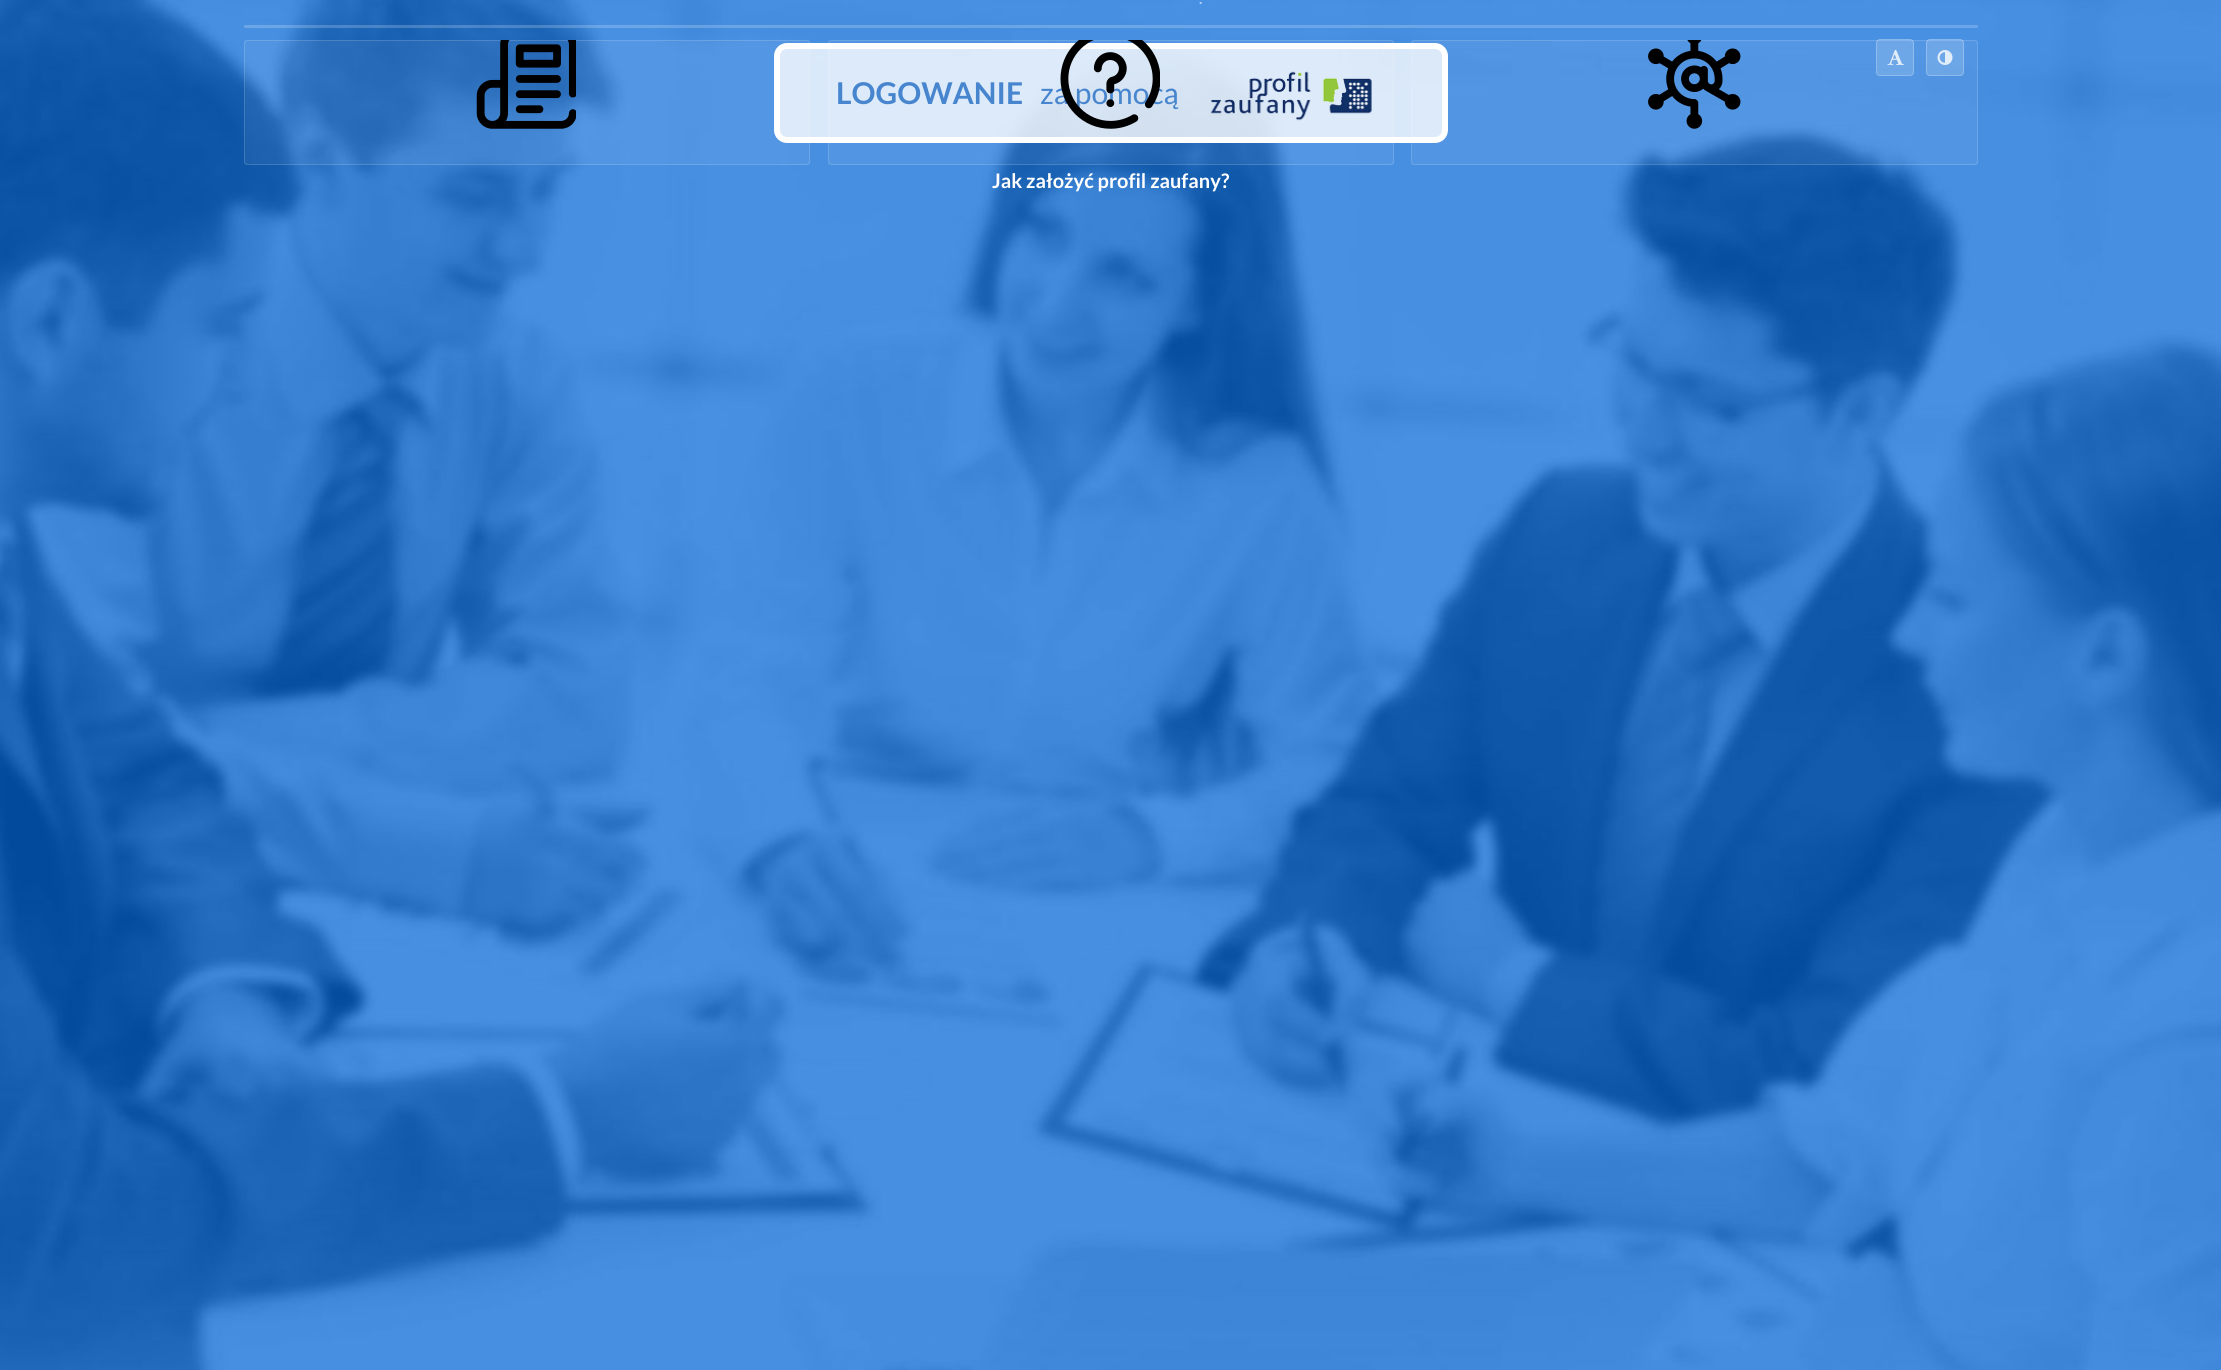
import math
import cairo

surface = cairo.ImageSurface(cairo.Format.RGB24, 2221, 1370)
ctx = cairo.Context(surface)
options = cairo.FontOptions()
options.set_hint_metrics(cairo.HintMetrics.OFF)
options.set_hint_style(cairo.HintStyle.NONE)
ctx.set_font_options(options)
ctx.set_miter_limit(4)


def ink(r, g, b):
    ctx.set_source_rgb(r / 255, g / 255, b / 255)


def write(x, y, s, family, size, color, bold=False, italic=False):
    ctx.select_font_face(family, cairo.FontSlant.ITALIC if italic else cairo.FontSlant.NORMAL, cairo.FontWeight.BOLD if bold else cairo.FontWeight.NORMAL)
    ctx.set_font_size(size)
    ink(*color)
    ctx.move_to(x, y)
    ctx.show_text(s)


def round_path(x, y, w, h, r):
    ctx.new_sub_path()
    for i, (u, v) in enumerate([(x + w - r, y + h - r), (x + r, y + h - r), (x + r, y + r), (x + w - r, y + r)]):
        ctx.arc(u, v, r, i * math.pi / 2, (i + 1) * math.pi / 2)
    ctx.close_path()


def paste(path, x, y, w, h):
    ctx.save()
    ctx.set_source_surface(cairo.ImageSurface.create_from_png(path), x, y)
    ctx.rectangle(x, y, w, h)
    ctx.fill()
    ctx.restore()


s1 = dict(family="Lato", size=15, color=(176, 207, 242), bold=True)
s2 = dict(family="Lato", size=30, color=(59, 126, 203), bold=True)
s3 = dict(family="Lato", size=30, color=(59, 126, 203))
s4 = dict(family="Lato", size=20, color=(255, 255, 255), bold=True)

ink(255, 255, 255)
ctx.paint()
paste("pic1.png", 0, 0, 2221, 1370)
ctx.set_source_rgba(1, 1, 1, 0.06)
ctx.rectangle(244, 25, 1734, 3)
ctx.fill()
ctx.set_source_rgba(1, 1, 1, 0.15)
round_path(244, 25, 1734, 3, 1.5)
ctx.fill()
write(1199, 4, ".", **s1)
ctx.set_source_rgba(1, 1, 1, 0.16)
round_path(1876, 39, 38, 37, 4)
ctx.fill()
round_path(1876.5, 39.5, 37, 36, 3.5)
ctx.set_source_rgba(0.855, 0.914, 0.976, 0.3)
ctx.set_line_width(1)
ctx.stroke()
paste("pic2.png", 1887, 50, 17, 15)
ctx.set_source_rgba(1, 1, 1, 0.16)
round_path(1926, 39, 38, 37, 4)
ctx.fill()
round_path(1926.5, 39.5, 37, 36, 3.5)
ctx.set_source_rgba(1, 1, 1, 0.24)
ctx.stroke()
paste("pic3.png", 1937, 50, 16, 15)
ctx.set_source_rgba(1, 1, 1, 0.8)
round_path(777, 46, 668, 94, 10)
ctx.fill_preserve()
ink(255, 255, 255)
ctx.set_line_width(6)
ctx.stroke()
write(836, 104, "LOGOWANIE", **s2)
write(1040, 104, "za pomocą", **s3)
paste("pic4.png", 1210, 71, 162, 50)
write(992, 188, "Jak założyć profil zaufany?", **s4)
ctx.set_source_rgba(1, 1, 1, 0.06)
ctx.rectangle(244, 40, 566, 125)
ctx.fill()
round_path(244.5, 40.5, 565, 124, 3.5)
ctx.set_source_rgba(1, 1, 1, 0.15)
ctx.set_line_width(1)
ctx.stroke()
paste("pic5.png", 476, 40, 100, 89)
ctx.set_source_rgba(1, 1, 1, 0.06)
ctx.rectangle(828, 40, 566, 125)
ctx.fill()
round_path(828.5, 40.5, 565, 124, 3.5)
ctx.set_source_rgba(1, 1, 1, 0.15)
ctx.stroke()
paste("pic6.png", 1060, 40, 100, 89)
ctx.set_source_rgba(1, 1, 1, 0.06)
ctx.rectangle(1411, 40, 567, 125)
ctx.fill()
round_path(1411.5, 40.5, 566, 124, 3.5)
ctx.set_source_rgba(1, 1, 1, 0.15)
ctx.stroke()
paste("pic7.png", 1648, 40, 93, 89)
surface.write_to_png("screenshot.png")
